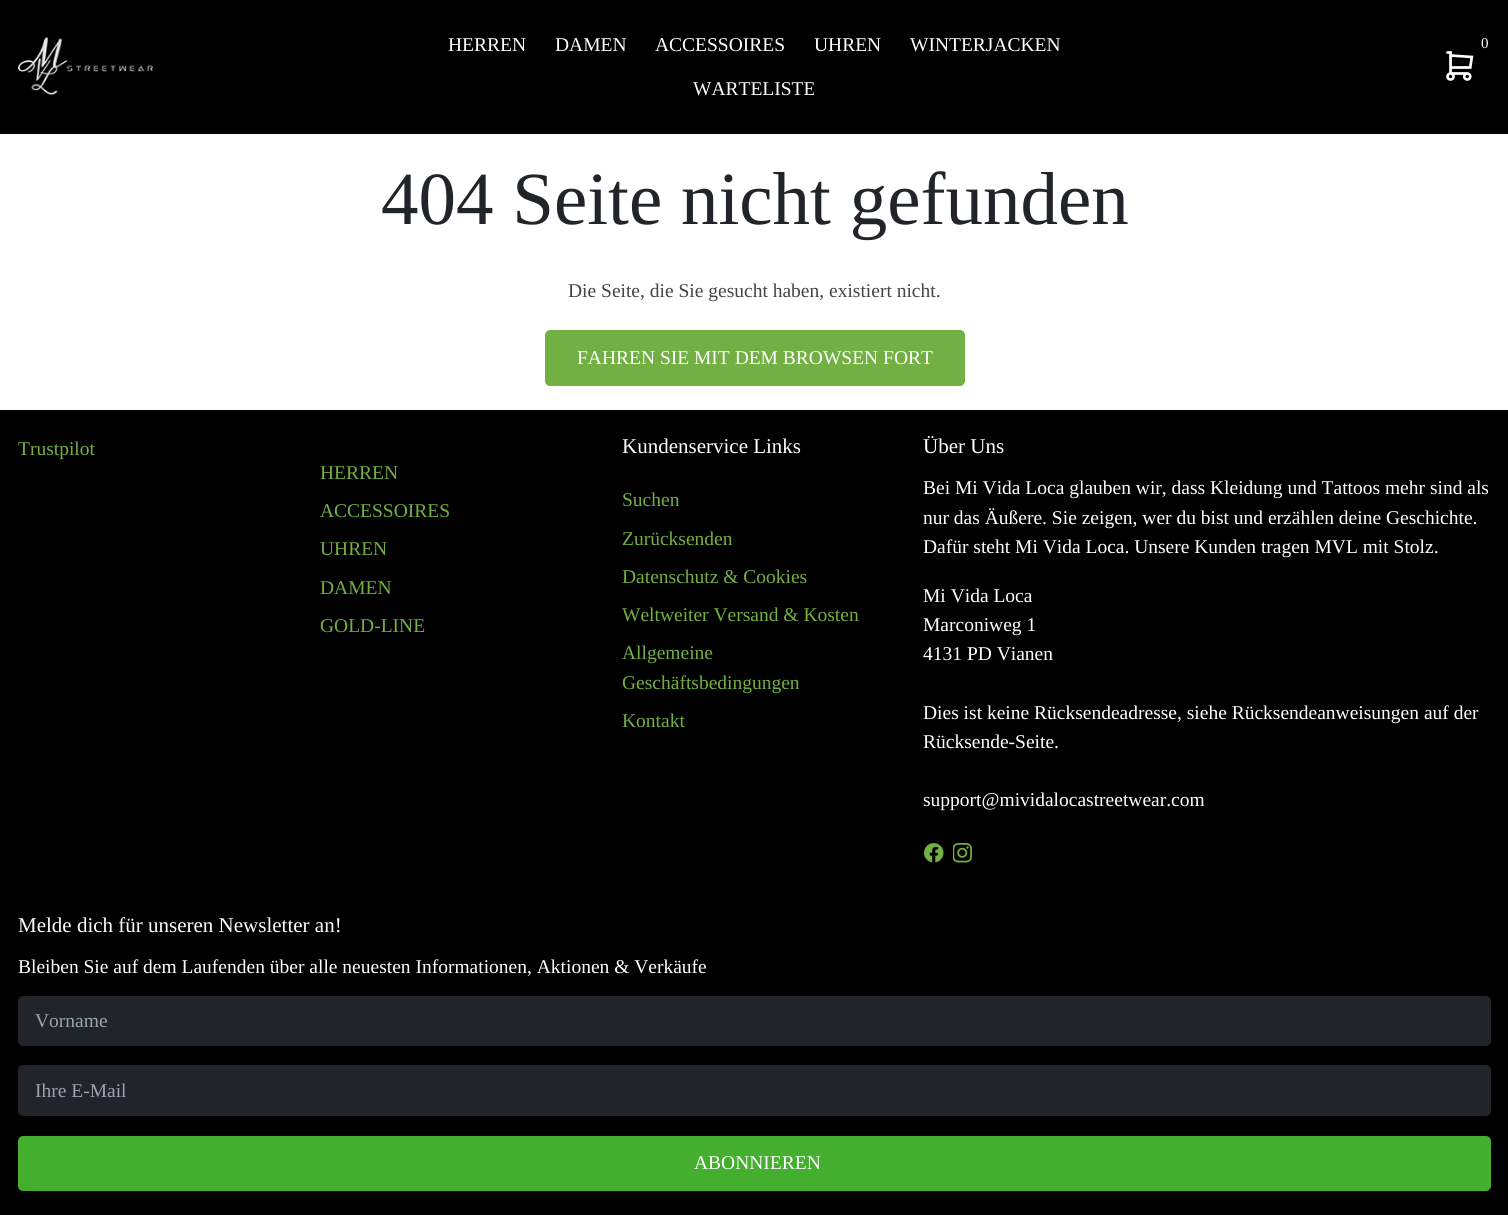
import math
import cairo

surface = cairo.ImageSurface(cairo.Format.RGB24, 1508, 1215)
ctx = cairo.Context(surface)
options = cairo.FontOptions()
options.set_hint_metrics(cairo.HintMetrics.OFF)
options.set_hint_style(cairo.HintStyle.NONE)
ctx.set_font_options(options)
ctx.set_miter_limit(4)


def ink(r, g, b):
    ctx.set_source_rgb(r / 255, g / 255, b / 255)


def write(x, y, s, family, size, color, bold=False, italic=False):
    ctx.select_font_face(family, cairo.FontSlant.ITALIC if italic else cairo.FontSlant.NORMAL, cairo.FontWeight.BOLD if bold else cairo.FontWeight.NORMAL)
    ctx.set_font_size(size)
    ink(*color)
    ctx.move_to(x, y)
    ctx.show_text(s)


def block(x, y, w, h, *color):
    ink(*color)
    ctx.rectangle(x, y, w, h)
    ctx.fill()


def round_path(x, y, w, h, r):
    ctx.new_sub_path()
    for i, (u, v) in enumerate([(x + w - r, y + h - r), (x + r, y + h - r), (x + r, y + r), (x + w - r, y + r)]):
        ctx.arc(u, v, r, i * math.pi / 2, (i + 1) * math.pi / 2)
    ctx.close_path()


def paste(path, x, y, w, h):
    ctx.save()
    ctx.set_source_surface(cairo.ImageSurface.create_from_png(path), x, y)
    ctx.rectangle(x, y, w, h)
    ctx.fill()
    ctx.restore()


s1 = dict(family="Liberation Serif", size=19.5, color=(255, 255, 255))
s2 = dict(family="Liberation Serif", size=15, color=(255, 255, 255))
s3 = dict(family="Liberation Serif", size=75, color=(33, 37, 41))
s4 = dict(family="Liberation Serif", size=19.5, color=(68, 68, 68))
s5 = dict(family="Liberation Serif", size=19.5, color=(114, 176, 67))
s6 = dict(family="Liberation Serif", size=21, color=(255, 255, 255))
s7 = dict(family="Liberation Serif", size=19.5, color=(156, 163, 175))

ink(255, 255, 255)
ctx.paint()
block(0, 0, 1508, 134, 0, 0, 0)
paste("pic1.png", 18, 37, 135, 58)
write(448, 51, "HERREN", **s1)
write(555, 51, "DAMEN", **s1)
write(655, 51, "ACCESSOIRES", **s1)
write(814, 51, "UHREN", **s1)
write(910, 51, "WINTERJACKEN", **s1)
write(693, 95, "WARTELISTE", **s1)
write(1481, 48, "0", **s2)
paste("pic2.png", 1446, 51, 28, 30)
write(381, 224, "404 Seite nicht gefunden", **s3)
write(568, 297, "Die Seite, die Sie gesucht haben, existiert nicht.", **s4)
ink(114, 176, 67)
round_path(546, 331, 418, 54, 4)
ctx.fill_preserve()
ctx.stroke()
write(577, 364, "FAHREN SIE MIT DEM BROWSEN FORT", **s1)
block(0, 410, 1508, 805, 0, 0, 0)
write(18, 455, "Trustpilot", **s5)
write(622, 453, "Kundenservice Links", **s6)
write(622, 506, "Suchen", **s5)
write(622, 545, "Zurücksenden", **s5)
write(622, 583, "Datenschutz & Cookies", **s5)
write(622, 621, "Weltweiter Versand & Kosten", **s5)
write(622, 659, "Allgemeine", **s5)
write(622, 689, "Geschäftsbedingungen", **s5)
write(622, 727, "Kontakt", **s5)
write(923, 453, "Über Uns", **s6)
write(923, 494, "Bei Mi Vida Loca glauben wir, dass Kleidung und Tattoos mehr sind als", **s1)
write(923, 524, "nur das Äußere. Sie zeigen, wer du bist und erzählen deine Geschichte.", **s1)
write(923, 553, "Dafür steht Mi Vida Loca. Unsere Kunden tragen MVL mit Stolz.", **s1)
write(923, 602, "Mi Vida Loca", **s1)
write(923, 631, "Marconiweg 1", **s1)
write(923, 660, "4131 PD Vianen", **s1)
write(923, 719, "Dies ist keine Rücksendeadresse, siehe Rücksendeanweisungen auf der", **s1)
write(923, 748, "Rücksende-Seite.", **s1)
write(923, 806, "support@mividalocastreetwear.com", **s1)
paste("pic3.png", 924, 843, 20, 20)
paste("pic4.png", 953, 843, 19, 20)
write(320, 479, "HERREN", **s5)
write(320, 517, "ACCESSOIRES", **s5)
write(320, 555, "UHREN", **s5)
write(320, 594, "DAMEN", **s5)
write(320, 632, "GOLD-LINE", **s5)
write(18, 932, "Melde dich für unseren Newsletter an!", **s6)
write(18, 973, "Bleiben Sie auf dem Laufenden über alle neuesten Informationen, Aktionen & Verkäufe", **s1)
ink(33, 37, 41)
round_path(19, 997, 1471, 48, 4)
ctx.fill_preserve()
ctx.stroke()
write(35, 1027, "Vorname", **s7)
ink(33, 37, 41)
round_path(19, 1066, 1471, 49, 4)
ctx.fill_preserve()
ctx.stroke()
write(35, 1097, "Ihre E-Mail", **s7)
ink(68, 174, 47)
round_path(19, 1137, 1471, 53, 4)
ctx.fill_preserve()
ctx.stroke()
write(694, 1169, "ABONNIEREN", **s1)
surface.write_to_png("screenshot.png")
